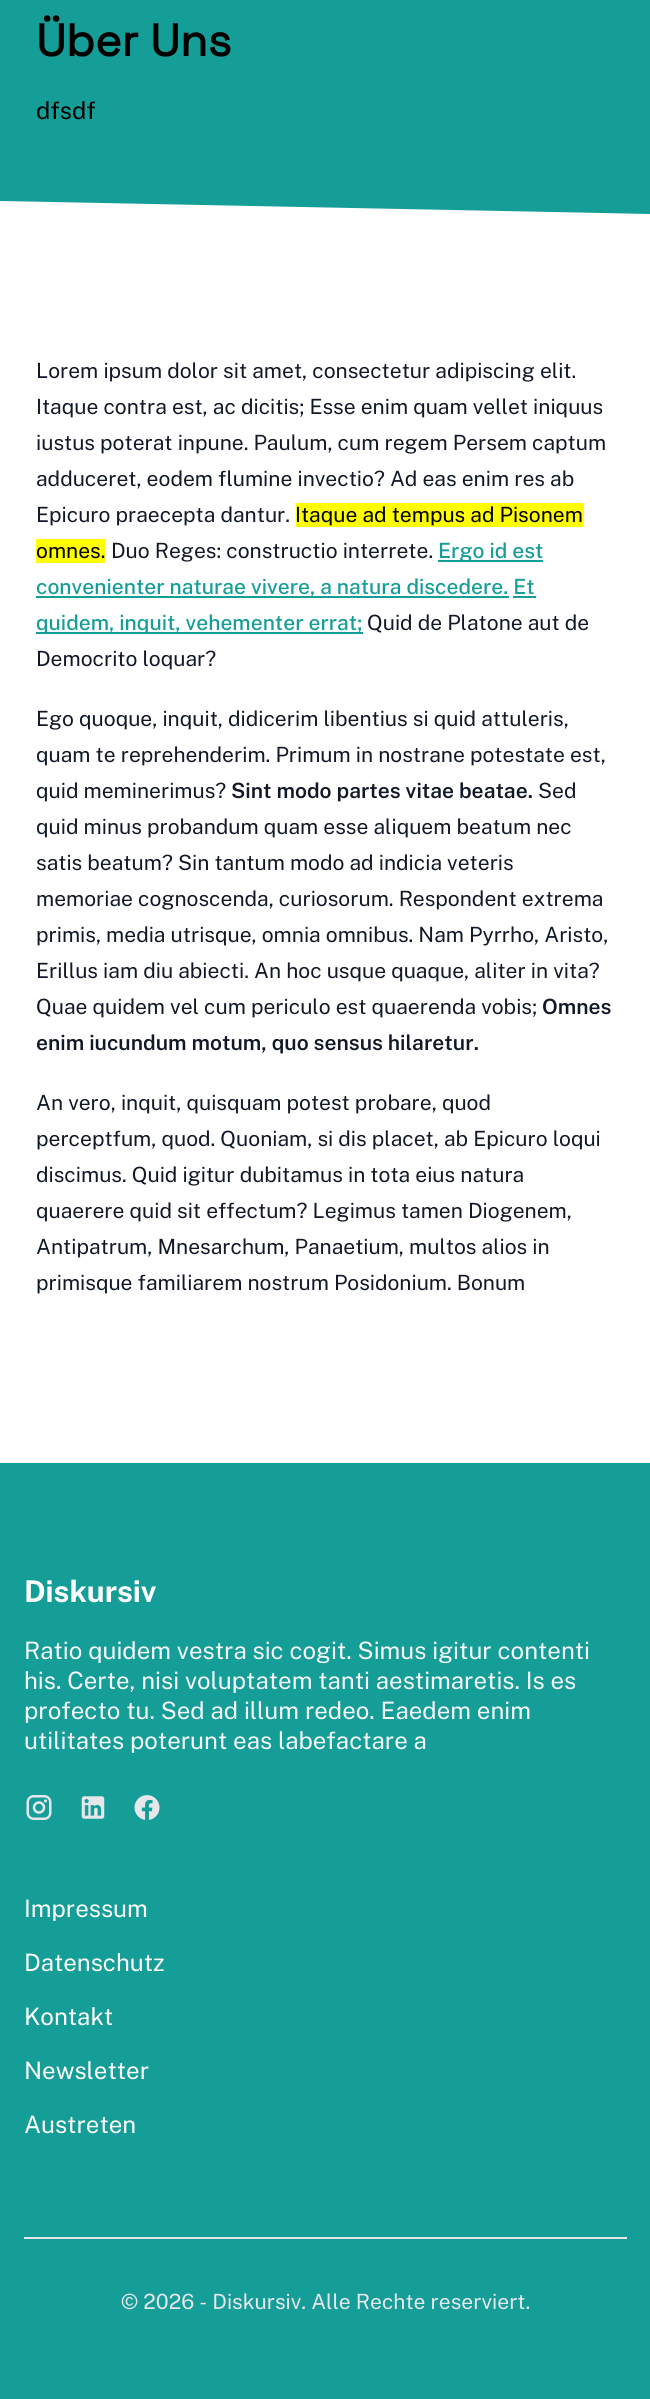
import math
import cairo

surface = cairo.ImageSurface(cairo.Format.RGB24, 650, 2399)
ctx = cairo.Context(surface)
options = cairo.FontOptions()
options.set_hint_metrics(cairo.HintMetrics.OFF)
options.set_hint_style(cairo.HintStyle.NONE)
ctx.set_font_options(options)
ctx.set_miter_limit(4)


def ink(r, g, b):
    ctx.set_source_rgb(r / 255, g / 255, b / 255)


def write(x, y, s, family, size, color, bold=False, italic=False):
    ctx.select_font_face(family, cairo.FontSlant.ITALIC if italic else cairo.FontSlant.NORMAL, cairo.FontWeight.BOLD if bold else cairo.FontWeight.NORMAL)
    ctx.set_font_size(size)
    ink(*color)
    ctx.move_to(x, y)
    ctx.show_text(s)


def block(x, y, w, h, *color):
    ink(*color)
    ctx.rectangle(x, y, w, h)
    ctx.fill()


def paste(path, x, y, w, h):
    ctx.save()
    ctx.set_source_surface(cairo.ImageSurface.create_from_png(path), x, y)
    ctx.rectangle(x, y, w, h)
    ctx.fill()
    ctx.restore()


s1 = dict(family="Space Grotesk", size=45, color=(0, 0, 0), bold=True)
s2 = dict(family="Public Sans", size=24, color=(0, 0, 0))
s3 = dict(family="Public Sans", size=21, color=(17, 24, 39))
s4 = dict(family="Public Sans", size=21, color=(0, 0, 0))
s5 = dict(family="Public Sans Medium", size=21, color=(21, 157, 152))
s6 = dict(family="Public Sans SemiBold", size=21, color=(17, 24, 39))
s7 = dict(family="Public Sans", size=30, color=(255, 255, 255), bold=True)
s8 = dict(family="Public Sans", size=24, color=(247, 250, 253))
s9 = dict(family="Public Sans", size=24, color=(255, 255, 255))
s10 = dict(family="Public Sans", size=21, color=(229, 231, 235))

ink(255, 255, 255)
ctx.paint()
ink(21, 157, 152)
ctx.new_path()
ctx.move_to(0, -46)
ctx.line_to(0, 201)
ctx.line_to(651, 214)
ctx.line_to(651, -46)
ctx.close_path()
ctx.fill()
write(36, 56, "Über Uns", **s1)
write(36, 119, "dfsdf", **s2)
write(36, 378, "Lorem ipsum dolor sit amet, consectetur adipiscing elit.", **s3)
write(36, 414, "Itaque contra est, ac dicitis; Esse enim quam vellet iniquus", **s3)
write(36, 450, "iustus poterat inpune. Paulum, cum regem Persem captum", **s3)
write(36, 486, "adduceret, eodem flumine invectio? Ad eas enim res ab", **s3)
write(36, 522, "Epicuro praecepta dantur.", **s3)
block(296, 503, 288, 24, 255, 255, 0)
write(295, 522, "Itaque ad tempus ad Pisonem", **s4)
block(36, 539, 69, 24, 255, 255, 0)
write(36, 558, "omnes.", **s4)
write(111, 558, "Duo Reges: constructio interrete.", **s3)
block(438, 560, 105, 2, 21, 157, 152)
write(438, 558, "Ergo id est", **s5)
block(36, 596, 473, 2, 21, 157, 152)
write(36, 594, "convenienter naturae vivere, a natura discedere. Et", **s5)
block(36, 632, 327, 2, 21, 157, 152)
write(36, 630, "quidem, inquit, vehementer errat;", **s5)
block(513, 596, 23, 2, 21, 157, 152)
write(367, 630, "Quid de Platone aut de", **s3)
write(36, 666, "Democrito loquar?", **s3)
write(36, 726, "Ego quoque, inquit, didicerim libentius si quid attuleris,", **s3)
write(36, 762, "quam te reprehenderim. Primum in nostrane potestate est,", **s3)
write(36, 798, "quid meminerimus?", **s3)
write(231, 798, "Sint modo partes vitae beatae.", **s6)
write(538, 798, "Sed", **s3)
write(36, 834, "quid minus probandum quam esse aliquem beatum nec", **s3)
write(36, 870, "satis beatum? Sin tantum modo ad indicia veteris", **s3)
write(36, 906, "memoriae cognoscenda, curiosorum. Respondent extrema", **s3)
write(36, 942, "primis, media utrisque, omnia omnibus. Nam Pyrrho, Aristo,", **s3)
write(36, 978, "Erillus iam diu abiecti. An hoc usque quaque, aliter in vita?", **s3)
write(36, 1014, "Quae quidem vel cum periculo est quaerenda vobis;", **s3)
write(542, 1014, "Omnes", **s6)
write(36, 1050, "enim iucundum motum, quo sensus hilaretur.", **s6)
write(36, 1110, "An vero, inquit, quisquam potest probare, quod", **s3)
write(36, 1146, "perceptfum, quod. Quoniam, si dis placet, ab Epicuro loqui", **s3)
write(36, 1182, "discimus. Quid igitur dubitamus in tota eius natura", **s3)
write(36, 1218, "quaerere quid sit effectum? Legimus tamen Diogenem,", **s3)
write(36, 1254, "Antipatrum, Mnesarchum, Panaetium, multos alios in", **s3)
write(36, 1290, "primisque familiarem nostrum Posidonium. Bonum", **s3)
block(0, 1463, 650, 936, 21, 157, 152)
write(24, 1602, "Diskursiv", **s7)
write(24, 1659, "Ratio quidem vestra sic cogit. Simus igitur contenti", **s8)
write(24, 1689, "his. Certe, nisi voluptatem tanti aestimaretis. Is es", **s8)
write(24, 1719, "profecto tu. Sed ad illum redeo. Eaedem enim", **s8)
write(24, 1749, "utilitates poterunt eas labefactare a", **s8)
paste("pic1.png", 26, 1795, 26, 25)
paste("pic2.png", 81, 1796, 24, 23)
paste("pic3.png", 134, 1795, 26, 25)
write(24, 1917, "Impressum", **s9)
write(24, 1971, "Datenschutz", **s9)
write(24, 2025, "Kontakt", **s9)
write(24, 2079, "Newsletter", **s9)
write(24, 2133, "Austreten", **s9)
block(24, 2237, 603, 2, 229, 231, 235)
write(121, 2309, "© 2026 - Diskursiv. Alle Rechte reserviert.", **s10)
surface.write_to_png("screenshot.png")
